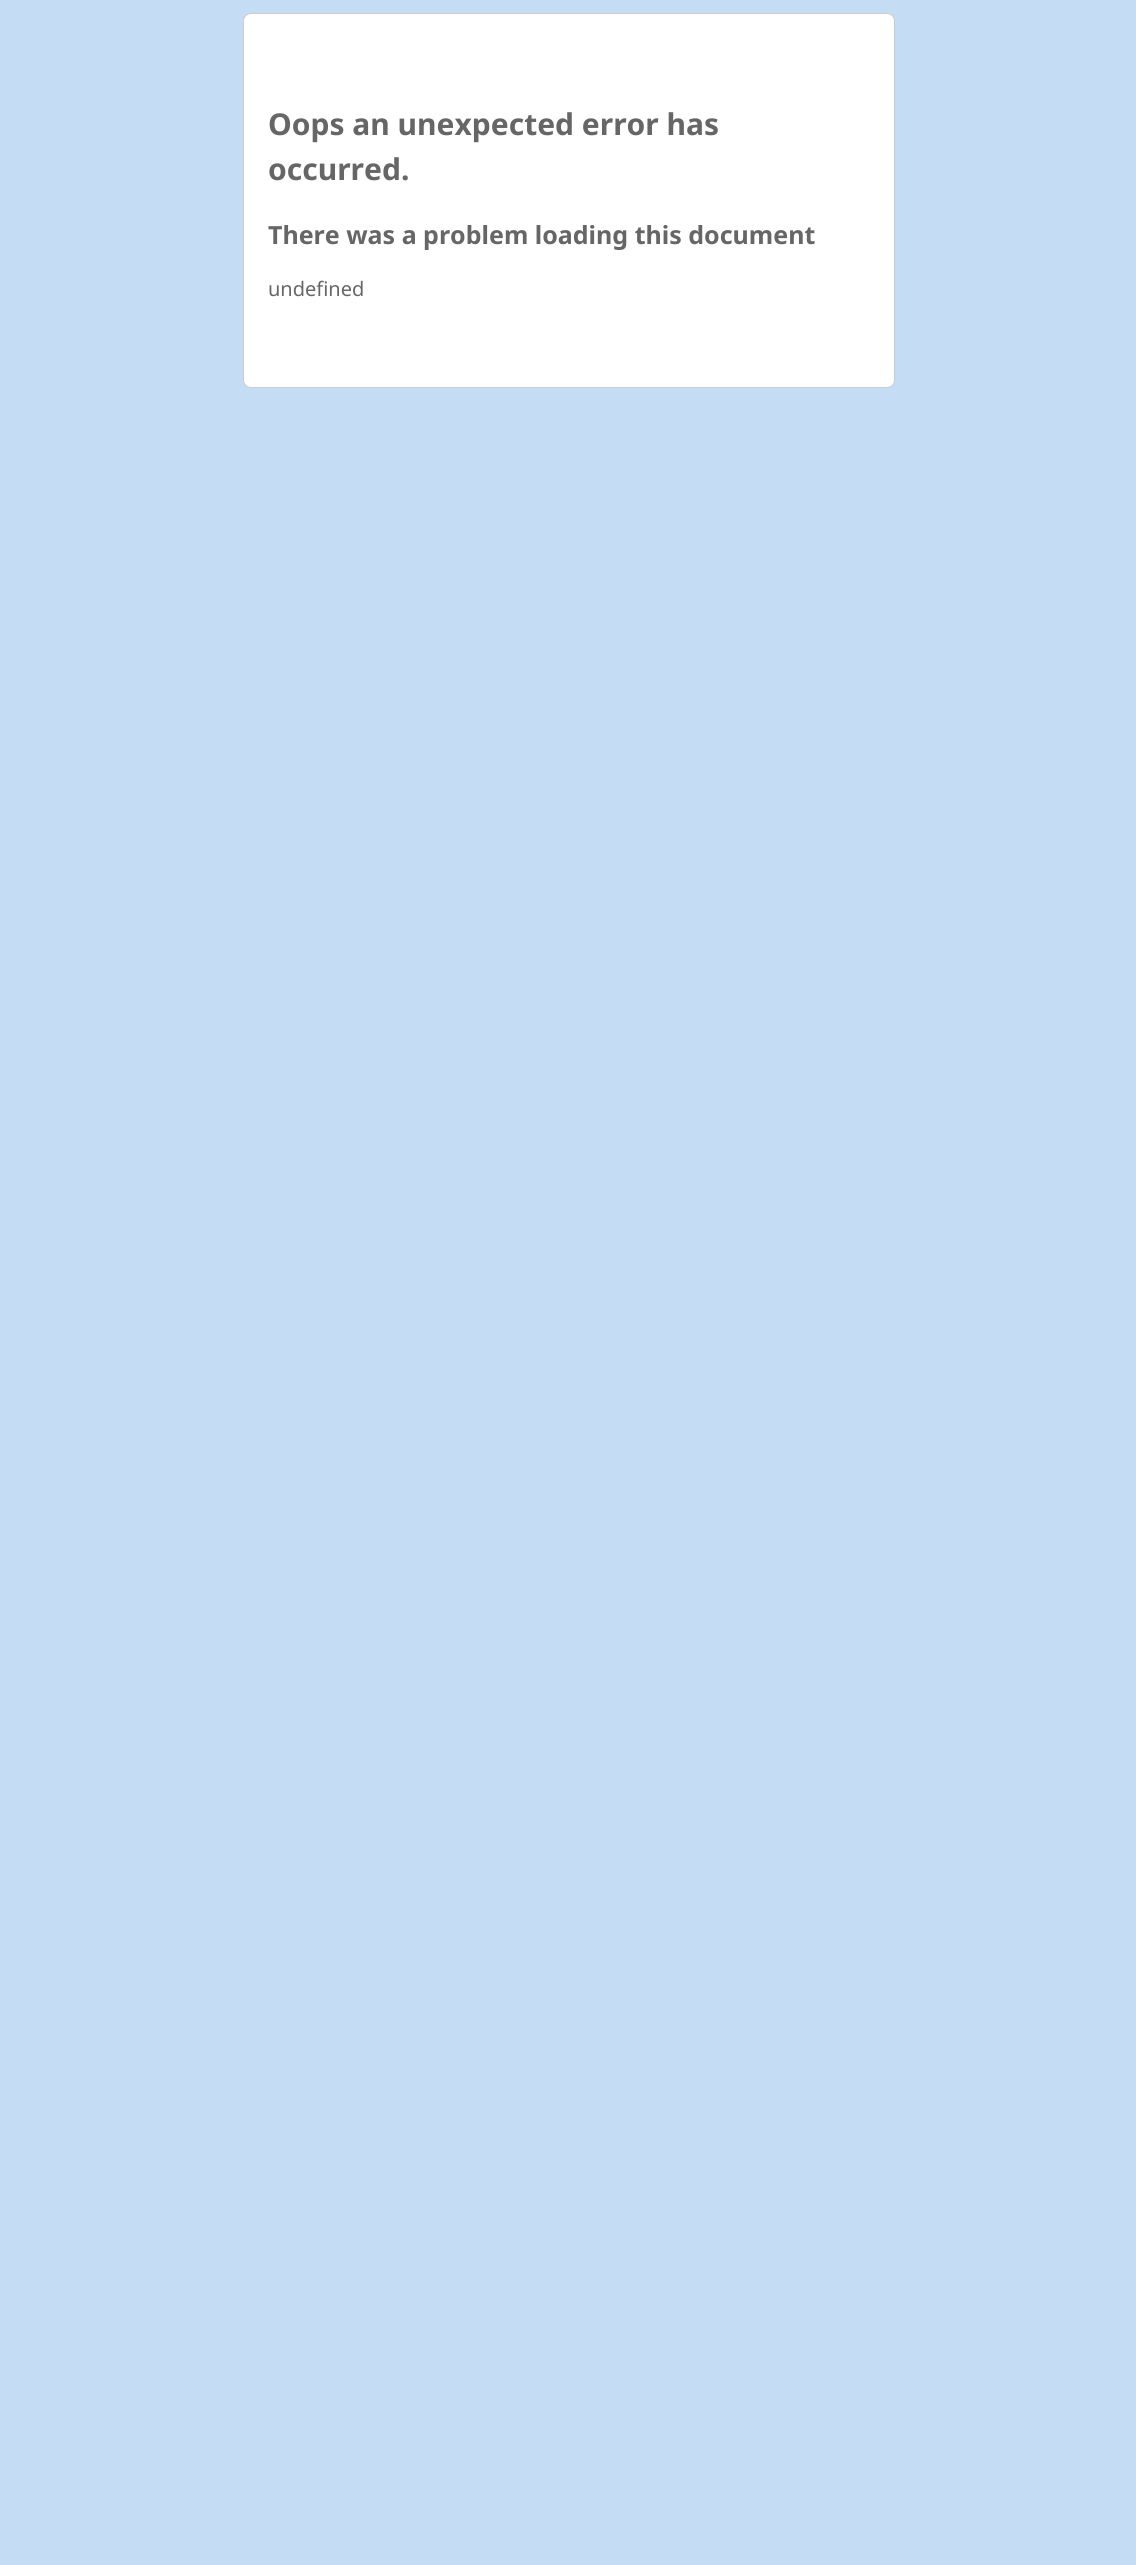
import math
import cairo

surface = cairo.ImageSurface(cairo.Format.RGB24, 1136, 2565)
ctx = cairo.Context(surface)
options = cairo.FontOptions()
options.set_hint_metrics(cairo.HintMetrics.OFF)
options.set_hint_style(cairo.HintStyle.NONE)
ctx.set_font_options(options)
ctx.set_miter_limit(4)


def ink(r, g, b):
    ctx.set_source_rgb(r / 255, g / 255, b / 255)


def write(x, y, s, family, size, color, bold=False, italic=False):
    ctx.select_font_face(family, cairo.FontSlant.ITALIC if italic else cairo.FontSlant.NORMAL, cairo.FontWeight.BOLD if bold else cairo.FontWeight.NORMAL)
    ctx.set_font_size(size)
    ink(*color)
    ctx.move_to(x, y)
    ctx.show_text(s)


def round_path(x, y, w, h, r):
    ctx.new_sub_path()
    for i, (u, v) in enumerate([(x + w - r, y + h - r), (x + r, y + h - r), (x + r, y + r), (x + w - r, y + r)]):
        ctx.arc(u, v, r, i * math.pi / 2, (i + 1) * math.pi / 2)
    ctx.close_path()


s1 = dict(family="Noto Sans", size=30, color=(102, 102, 102), bold=True)
s2 = dict(family="Noto Sans", size=25, color=(102, 102, 102), bold=True)
s3 = dict(family="Noto Sans", size=20, color=(102, 102, 102))

ink(196, 220, 244)
ctx.paint()
ink(255, 255, 255)
round_path(243.5, 13.5, 651, 374, 7.5)
ctx.fill_preserve()
ink(204, 204, 204)
ctx.set_line_width(1)
ctx.stroke()
write(268, 135, "Oops an unexpected error has", **s1)
write(268, 180, "occurred.", **s1)
write(268, 244, "There was a problem loading this document", **s2)
write(268, 296, "undefined", **s3)
surface.write_to_png("screenshot.png")
